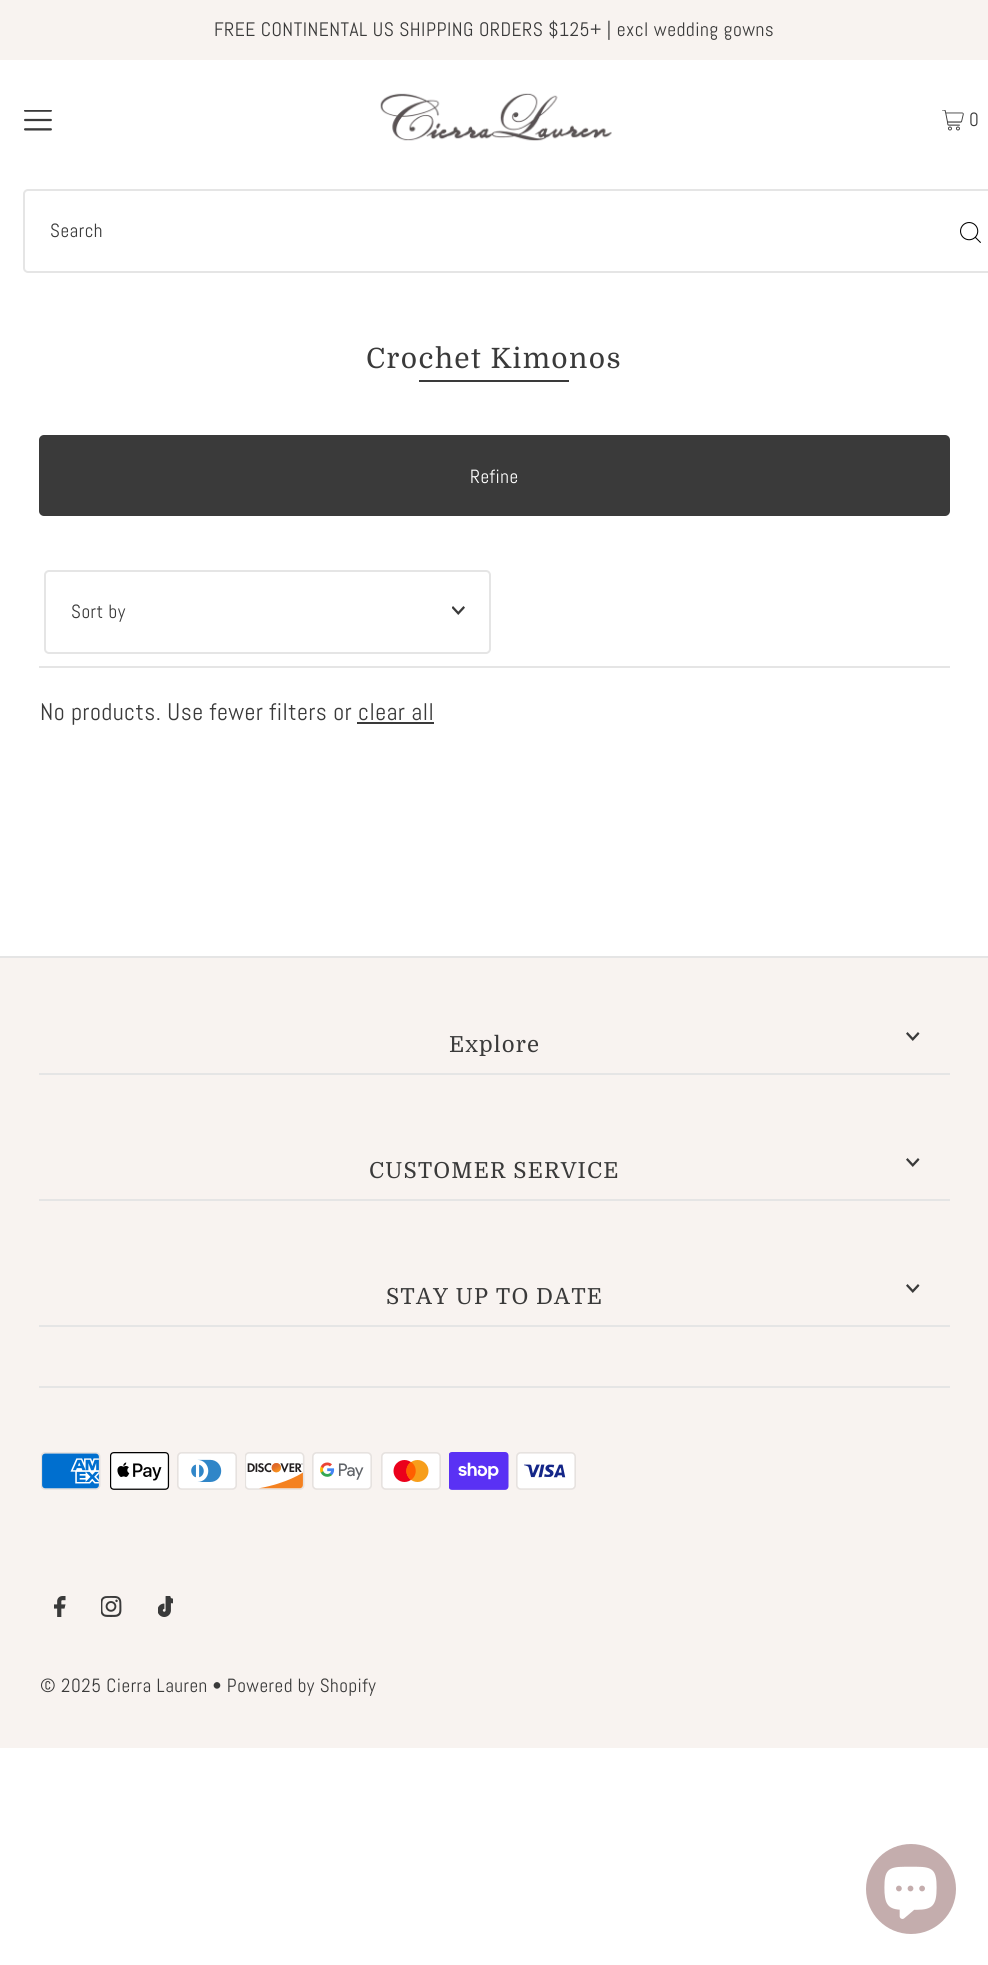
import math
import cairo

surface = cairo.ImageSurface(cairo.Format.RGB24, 988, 1965)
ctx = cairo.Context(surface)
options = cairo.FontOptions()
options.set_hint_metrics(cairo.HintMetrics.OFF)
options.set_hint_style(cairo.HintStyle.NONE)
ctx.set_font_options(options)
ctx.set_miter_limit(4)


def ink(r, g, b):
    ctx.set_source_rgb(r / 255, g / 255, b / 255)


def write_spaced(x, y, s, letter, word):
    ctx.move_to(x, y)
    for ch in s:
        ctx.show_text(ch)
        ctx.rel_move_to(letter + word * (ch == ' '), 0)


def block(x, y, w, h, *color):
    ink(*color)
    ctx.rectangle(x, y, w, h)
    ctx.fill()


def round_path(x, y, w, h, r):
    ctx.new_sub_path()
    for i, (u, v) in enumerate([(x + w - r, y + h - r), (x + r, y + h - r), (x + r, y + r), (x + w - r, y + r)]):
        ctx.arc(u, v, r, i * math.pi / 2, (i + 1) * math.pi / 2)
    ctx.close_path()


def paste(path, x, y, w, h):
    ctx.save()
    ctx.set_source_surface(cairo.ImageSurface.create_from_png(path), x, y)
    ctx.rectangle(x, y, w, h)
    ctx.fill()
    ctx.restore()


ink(255, 255, 255)
ctx.paint()
block(0, 0, 988, 60, 248, 243, 240)
ctx.select_font_face("Abel")
ctx.set_font_size(19.5)
ink(58, 58, 58)
write_spaced(214, 36, "FREE CONTINENTAL US SHIPPING ORDERS $125+ | excl wedding gowns", 0.48, 0)
paste("pic1.png", 24, 110, 28, 21)
paste("pic2.png", 380, 93, 232, 48)
paste("pic3.png", 942, 110, 22, 21)
ctx.set_font_size(19.1)
write_spaced(969, 126, "0", 0.48, 0)
round_path(24, 190, 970, 82, 4)
ink(229, 229, 229)
ctx.stroke()
ink(58, 58, 58)
write_spaced(50, 237, "Search", 0.48, 0)
paste("pic4.png", 960, 222, 21, 21)
ctx.select_font_face("Domine")
ctx.set_font_size(28)
write_spaced(366, 368, "Crochet Kimonos", 1.4, 0)
block(419, 380, 150, 2, 58, 58, 58)
round_path(39, 435, 911, 81, 5)
ctx.fill()
ctx.select_font_face("Abel")
ctx.set_font_size(19.1)
ink(255, 255, 255)
write_spaced(470, 483, "Refine", 0.48, 0)
block(39, 666, 911, 2, 229, 229, 229)
round_path(45, 571, 445, 82, 4)
ctx.stroke()
ink(58, 58, 58)
write_spaced(71, 618, "Sort by", 0.48, 0)
paste("pic5.png", 452, 606, 13, 9)
ctx.set_font_size(24)
write_spaced(40, 720, "No products. Use fewer filters or clear all", 0.48, 0)
block(357, 722, 77, 2, 58, 58, 58)
block(0, 958, 988, 790, 248, 243, 240)
block(0, 956, 988, 2, 229, 229, 229)
block(39, 1073, 911, 2, 229, 229, 229)
ctx.select_font_face("Domine")
ctx.set_font_size(22.1)
ink(58, 58, 58)
write_spaced(449, 1052, "Explore", 1.1, 0)
paste("pic6.png", 906, 1032, 14, 9)
block(39, 1199, 911, 2, 229, 229, 229)
ink(58, 58, 58)
write_spaced(369, 1178, "CUSTOMER SERVICE", 1.1, 0)
paste("pic6.png", 906, 1158, 14, 9)
block(39, 1325, 911, 2, 229, 229, 229)
ink(58, 58, 58)
write_spaced(386, 1304, "STAY UP TO DATE", 1.1, 0)
paste("pic6.png", 906, 1284, 14, 9)
block(39, 1386, 911, 2, 229, 229, 229)
paste("pic7.png", 41, 1452, 60, 38)
paste("pic8.png", 110, 1452, 60, 38)
paste("pic9.png", 177, 1452, 60, 38)
paste("pic10.png", 245, 1452, 60, 38)
paste("pic11.png", 312, 1452, 60, 38)
paste("pic12.png", 381, 1452, 60, 38)
paste("pic13.png", 449, 1452, 60, 38)
paste("pic14.png", 516, 1452, 60, 38)
paste("pic15.png", 54, 1596, 12, 21)
paste("pic16.png", 101, 1596, 21, 21)
paste("pic17.png", 158, 1596, 15, 21)
ctx.select_font_face("Abel")
ctx.set_font_size(19.1)
ink(58, 58, 58)
write_spaced(40, 1692, "© 2025 Cierra Lauren • Powered by Shopify", 0.48, 0)
ink(196, 173, 173)
ctx.new_path()
ctx.arc(911, 1889, 45, 0, 2 * math.pi)
ctx.fill()
paste("pic18.png", 884, 1866, 53, 53)
surface.write_to_png("screenshot.png")
